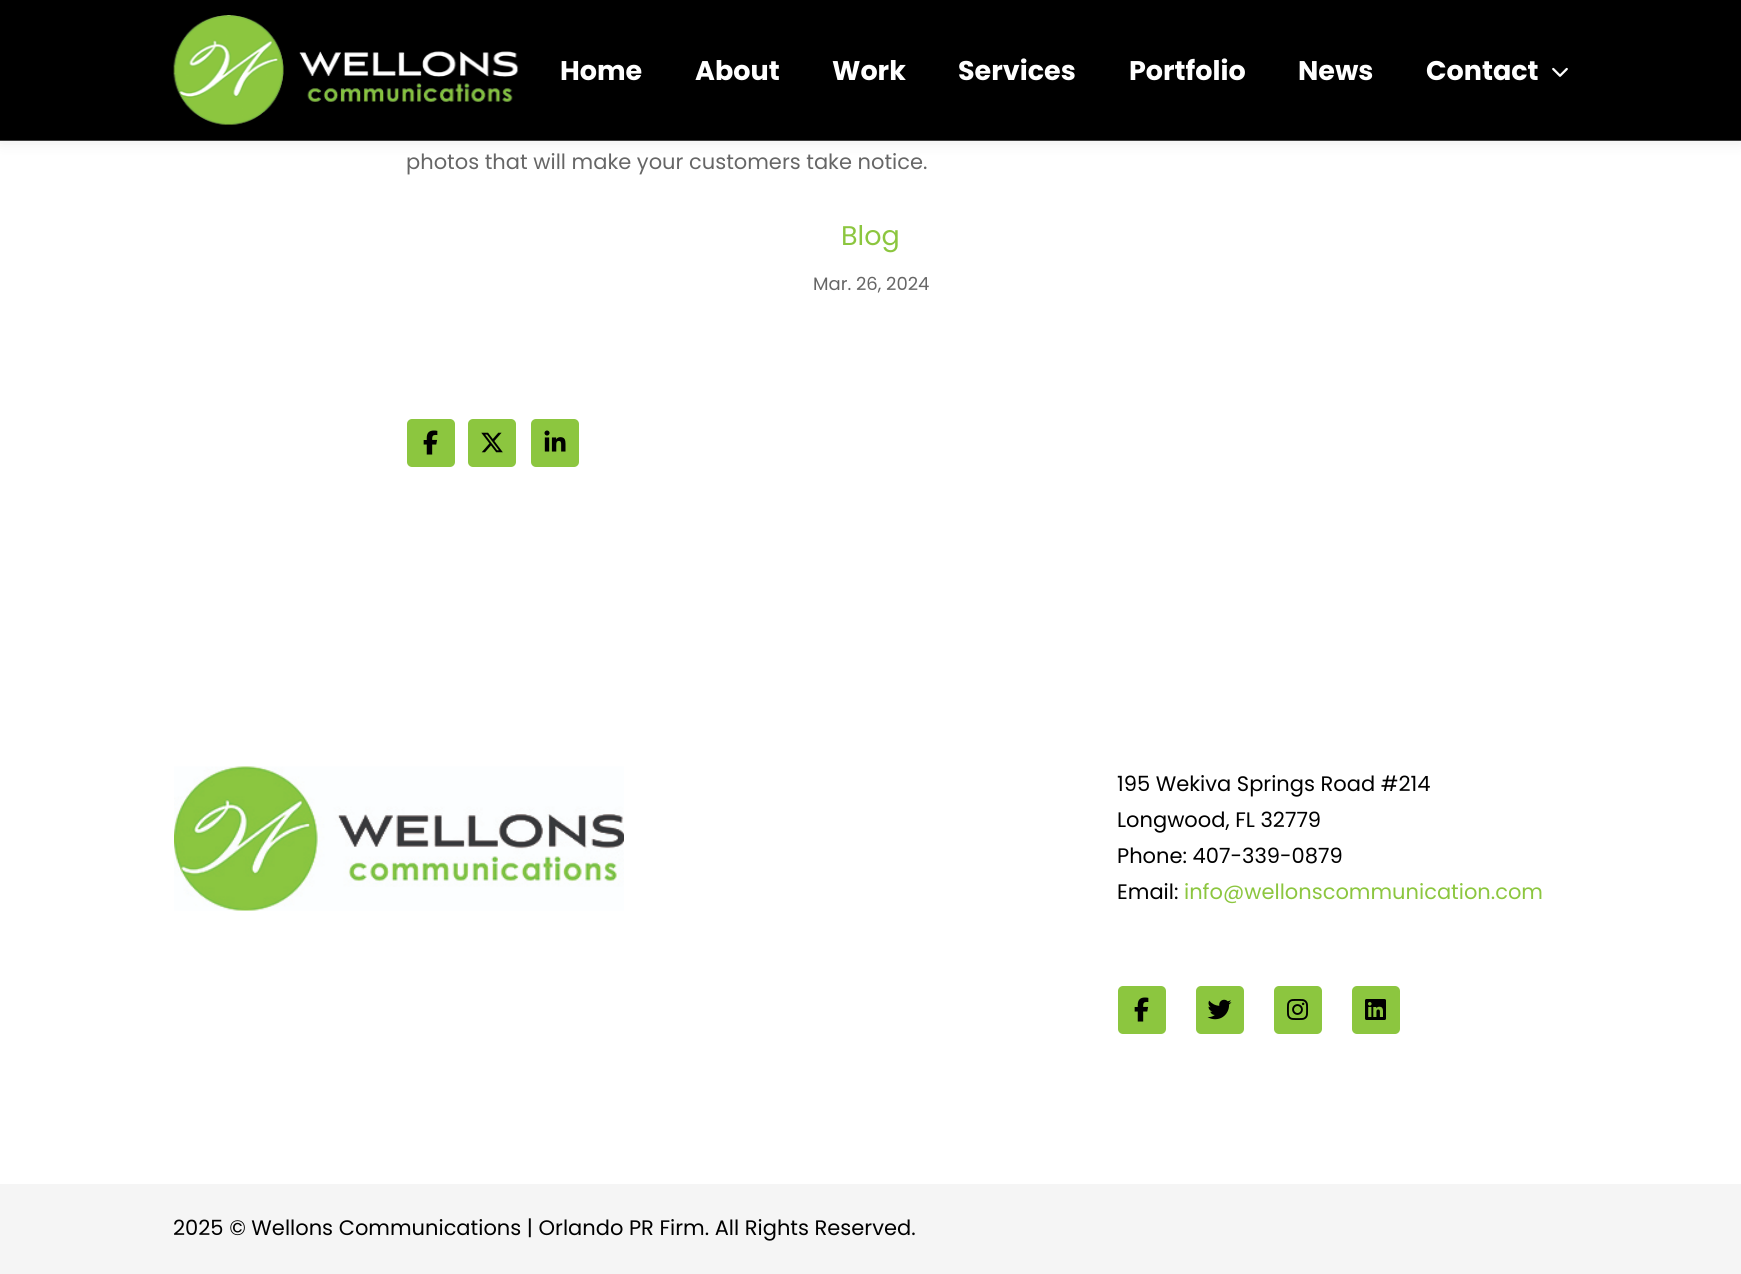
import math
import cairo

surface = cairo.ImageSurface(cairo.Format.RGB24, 1741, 1274)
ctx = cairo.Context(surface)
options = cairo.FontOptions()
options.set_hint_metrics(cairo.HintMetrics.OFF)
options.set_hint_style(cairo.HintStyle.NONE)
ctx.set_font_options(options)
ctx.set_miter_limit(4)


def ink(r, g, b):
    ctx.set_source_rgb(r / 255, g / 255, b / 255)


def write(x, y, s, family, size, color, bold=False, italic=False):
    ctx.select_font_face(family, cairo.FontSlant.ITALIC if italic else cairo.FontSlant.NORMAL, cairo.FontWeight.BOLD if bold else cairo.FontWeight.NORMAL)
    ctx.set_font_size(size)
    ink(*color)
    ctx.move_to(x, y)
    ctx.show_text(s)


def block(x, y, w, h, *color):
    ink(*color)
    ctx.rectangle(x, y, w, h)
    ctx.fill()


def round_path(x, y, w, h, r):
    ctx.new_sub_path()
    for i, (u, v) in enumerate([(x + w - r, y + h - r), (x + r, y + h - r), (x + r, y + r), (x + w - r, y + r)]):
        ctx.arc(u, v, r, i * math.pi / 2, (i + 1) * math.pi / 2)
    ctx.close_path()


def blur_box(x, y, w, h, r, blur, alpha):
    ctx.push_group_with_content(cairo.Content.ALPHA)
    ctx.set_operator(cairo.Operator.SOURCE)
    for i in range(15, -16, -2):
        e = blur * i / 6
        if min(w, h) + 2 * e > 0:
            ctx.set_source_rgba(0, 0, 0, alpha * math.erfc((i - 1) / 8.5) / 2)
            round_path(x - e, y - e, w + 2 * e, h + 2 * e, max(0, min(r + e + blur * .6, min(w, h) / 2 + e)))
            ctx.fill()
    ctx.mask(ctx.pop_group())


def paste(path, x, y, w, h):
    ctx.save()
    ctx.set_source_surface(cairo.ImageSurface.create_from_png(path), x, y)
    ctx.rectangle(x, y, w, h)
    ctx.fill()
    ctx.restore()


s1 = dict(family="Poppins", size=27, color=(255, 255, 255), bold=True)
s2 = dict(family="Poppins", size=21, color=(102, 102, 102))
s3 = dict(family="Poppins", size=27, color=(140, 198, 63))
s4 = dict(family="Poppins", size=18, color=(102, 102, 102))
s5 = dict(family="Poppins", size=21, color=(0, 0, 0))
s6 = dict(family="Poppins", size=21, color=(140, 198, 63))

ink(255, 255, 255)
ctx.paint()
ink(0, 0, 0)
blur_box(0, 0, 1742, 141, 0, 7.5, 0.1)
block(0, 0, 1741, 141, 0, 0, 0)
ctx.set_source_rgba(1, 1, 1, 0.25)
ctx.rectangle(0, 140, 1741, 2)
ctx.fill()
paste("pic1.png", 173, 15, 346, 110)
write(560, 80, "Home", **s1)
write(695, 80, "About", **s1)
write(832, 80, "Work", **s1)
write(958, 80, "Services", **s1)
write(1129, 80, "Portfolio", **s1)
write(1298, 80, "News", **s1)
write(1426, 80, "Contact", **s1)
paste("pic2.png", 1552, 67, 16, 10)
write(406, 169, "photos that will make your customers take notice.", **s2)
write(841, 245, "Blog", **s3)
write(813, 290, "Mar. 26, 2024", **s4)
ink(140, 198, 63)
round_path(407, 419, 48, 48, 5)
ctx.fill()
paste("pic3.png", 423, 430, 15, 25)
round_path(468, 419, 48, 48, 5)
ctx.fill()
paste("pic4.png", 481, 432, 22, 21)
round_path(531, 419, 48, 48, 5)
ctx.fill()
paste("pic5.png", 544, 430, 22, 22)
paste("pic6.png", 174, 766, 450, 145)
write(1117, 791, "195 Wekiva Springs Road #214", **s5)
write(1117, 827, "Longwood, FL 32779", **s5)
write(1117, 863, "Phone: 407-339-0879", **s5)
write(1117, 899, "Email:", **s5)
write(1184, 899, "info@wellonscommunication.com", **s6)
round_path(1118, 986, 48, 48, 5)
ctx.fill()
paste("pic3.png", 1134, 997, 15, 25)
round_path(1196, 986, 48, 48, 5)
ctx.fill()
paste("pic7.png", 1207, 999, 25, 21)
round_path(1274, 986, 48, 48, 5)
ctx.fill()
paste("pic8.png", 1287, 999, 21, 21)
round_path(1352, 986, 48, 48, 5)
ctx.fill()
paste("pic9.png", 1365, 999, 21, 21)
block(0, 1184, 1741, 90, 245, 245, 245)
write(173, 1235, "2025 © Wellons Communications | Orlando PR Firm. All Rights Reserved.", **s5)
surface.write_to_png("screenshot.png")
